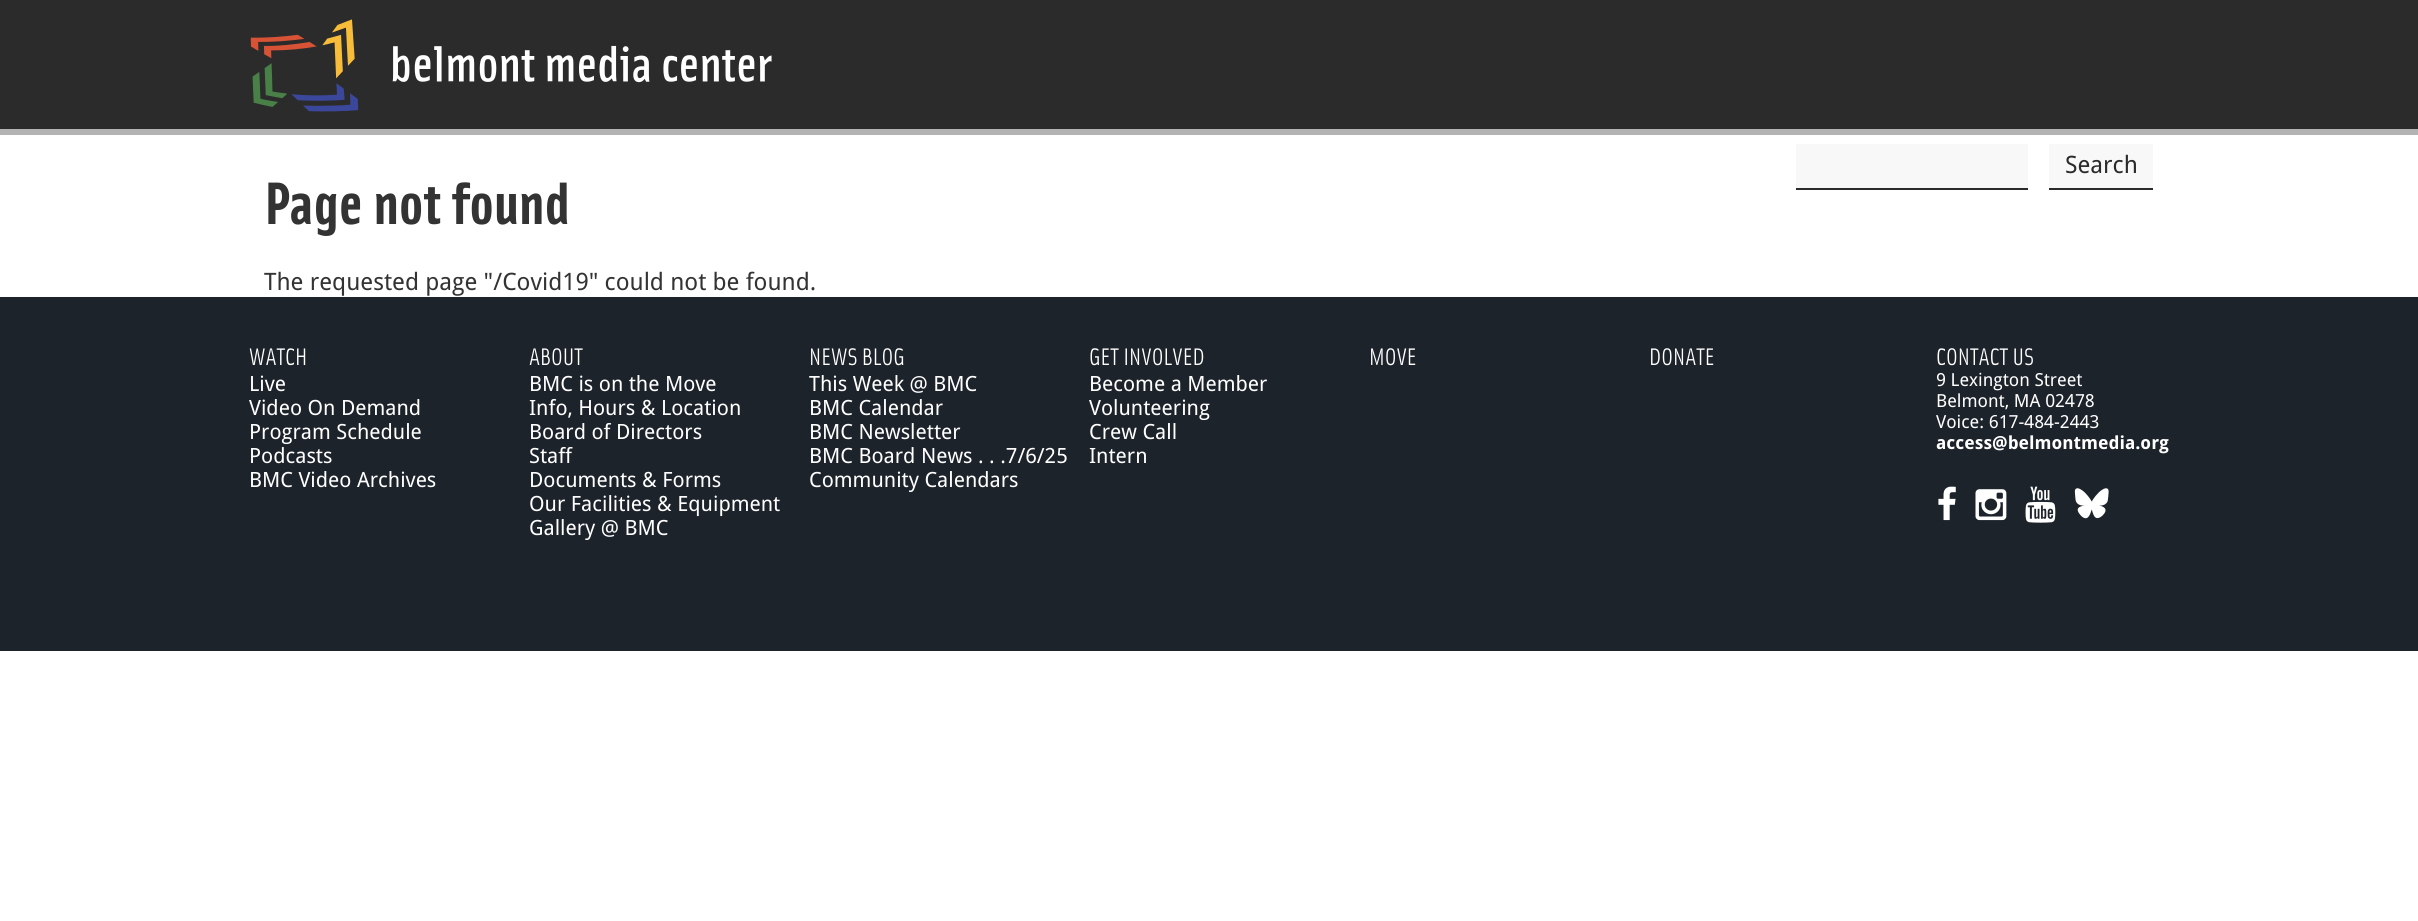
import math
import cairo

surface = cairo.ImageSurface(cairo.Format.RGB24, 2418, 921)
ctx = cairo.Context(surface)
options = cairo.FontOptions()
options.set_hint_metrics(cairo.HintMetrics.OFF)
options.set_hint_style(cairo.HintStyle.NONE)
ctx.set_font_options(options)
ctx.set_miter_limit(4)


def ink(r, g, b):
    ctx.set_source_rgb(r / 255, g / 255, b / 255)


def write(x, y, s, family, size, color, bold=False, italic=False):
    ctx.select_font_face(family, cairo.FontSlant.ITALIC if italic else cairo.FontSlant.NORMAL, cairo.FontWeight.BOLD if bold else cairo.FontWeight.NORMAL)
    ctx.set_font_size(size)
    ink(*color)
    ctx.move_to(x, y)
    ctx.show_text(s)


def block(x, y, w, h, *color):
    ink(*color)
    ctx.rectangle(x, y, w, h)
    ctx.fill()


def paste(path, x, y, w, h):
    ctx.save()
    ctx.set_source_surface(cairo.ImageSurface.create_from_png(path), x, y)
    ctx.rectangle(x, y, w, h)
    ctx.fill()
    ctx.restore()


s1 = dict(family="Droid Sans", size=24, color=(43, 43, 43))
s2 = dict(family="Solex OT", size=60, color=(51, 51, 51), bold=True)
s3 = dict(family="Droid Sans", size=24, color=(51, 51, 51))
s4 = dict(family="Solex OT", size=24, color=(255, 255, 255))
s5 = dict(family="Droid Sans", size=21, color=(255, 255, 255))
s6 = dict(family="Droid Sans", size=18, color=(255, 255, 255))
s7 = dict(family="Droid Sans", size=18, color=(255, 255, 255), bold=True)

ink(255, 255, 255)
ctx.paint()
block(0, 129, 2418, 6, 179, 179, 179)
block(0, 0, 2418, 129, 43, 43, 43)
paste("pic1.png", 250, 19, 522, 93)
block(1796, 144, 232, 44, 248, 248, 248)
block(1796, 188, 232, 2, 43, 43, 43)
block(2049, 144, 104, 44, 248, 248, 248)
block(2049, 188, 104, 2, 43, 43, 43)
write(2065, 173, "Search", **s1)
write(264, 224, "Page not found", **s2)
write(264, 290, "The requested page \"/Covid19\" could not be found.", **s3)
block(0, 297, 2418, 354, 29, 35, 43)
write(249, 365, "WATCH", **s4)
write(249, 391, "Live", **s5)
write(249, 415, "Video On Demand", **s5)
write(249, 439, "Program Schedule", **s5)
write(249, 463, "Podcasts", **s5)
write(249, 487, "BMC Video Archives", **s5)
write(529, 365, "ABOUT", **s4)
write(529, 391, "BMC is on the Move", **s5)
write(529, 415, "Info, Hours & Location", **s5)
write(529, 439, "Board of Directors", **s5)
write(529, 463, "Staff", **s5)
write(529, 487, "Documents & Forms", **s5)
write(529, 511, "Our Facilities & Equipment", **s5)
write(529, 535, "Gallery @ BMC", **s5)
write(809, 365, "NEWS BLOG", **s4)
write(809, 391, "This Week @ BMC", **s5)
write(809, 415, "BMC Calendar", **s5)
write(809, 439, "BMC Newsletter", **s5)
write(809, 463, "BMC Board News . . .7/6/25", **s5)
write(809, 487, "Community Calendars", **s5)
write(1089, 365, "GET INVOLVED", **s4)
write(1089, 391, "Become a Member", **s5)
write(1089, 415, "Volunteering", **s5)
write(1089, 439, "Crew Call", **s5)
write(1089, 463, "Intern", **s5)
write(1369, 365, "MOVE", **s4)
write(1649, 365, "DONATE", **s4)
write(1936, 365, "CONTACT US", **s4)
write(1936, 386, "9 Lexington Street", **s6)
write(1936, 407, "Belmont, MA 02478", **s6)
write(1936, 428, "Voice: 617-484-2443", **s6)
write(1936, 449, "access@belmontmedia.org", **s7)
paste("pic2.png", 1938, 486, 18, 35)
paste("pic3.png", 1975, 489, 32, 32)
paste("pic4.png", 2025, 486, 31, 37)
paste("pic5.png", 2074, 488, 35, 31)
surface.write_to_png("screenshot.png")
